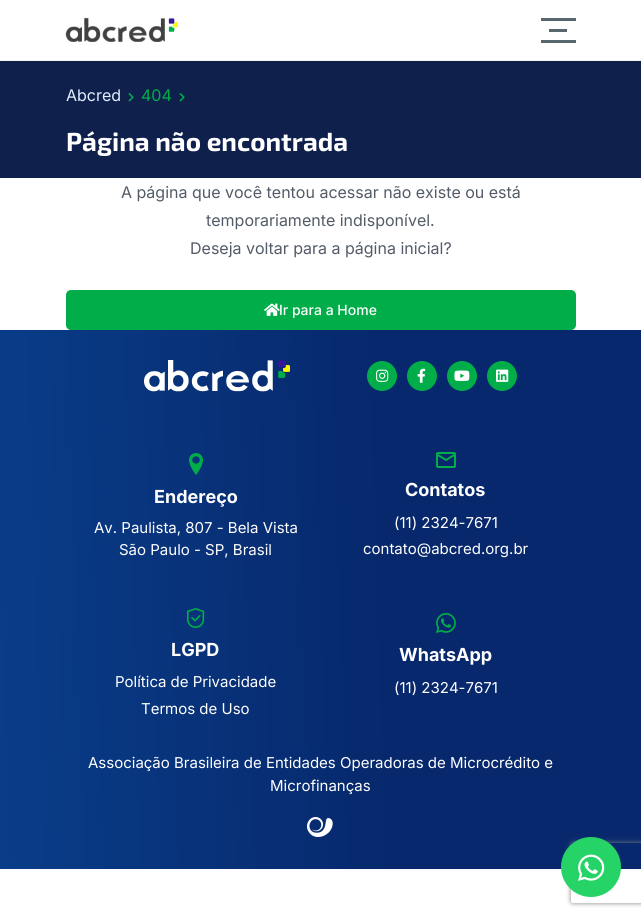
import math
import cairo

surface = cairo.ImageSurface(cairo.Format.RGB24, 641, 917)
ctx = cairo.Context(surface)
options = cairo.FontOptions()
options.set_hint_metrics(cairo.HintMetrics.OFF)
options.set_hint_style(cairo.HintStyle.NONE)
ctx.set_font_options(options)
ctx.set_miter_limit(4)


def ink(r, g, b):
    ctx.set_source_rgb(r / 255, g / 255, b / 255)


def write(x, y, s, family, size, color, bold=False, italic=False):
    ctx.select_font_face(family, cairo.FontSlant.ITALIC if italic else cairo.FontSlant.NORMAL, cairo.FontWeight.BOLD if bold else cairo.FontWeight.NORMAL)
    ctx.set_font_size(size)
    ink(*color)
    ctx.move_to(x, y)
    ctx.show_text(s)


def block(x, y, w, h, *color):
    ink(*color)
    ctx.rectangle(x, y, w, h)
    ctx.fill()


def round_path(x, y, w, h, r):
    ctx.new_sub_path()
    for i, (u, v) in enumerate([(x + w - r, y + h - r), (x + r, y + h - r), (x + r, y + r), (x + w - r, y + r)]):
        ctx.arc(u, v, r, i * math.pi / 2, (i + 1) * math.pi / 2)
    ctx.close_path()


def blur_box(x, y, w, h, r, blur, alpha):
    ctx.push_group_with_content(cairo.Content.ALPHA)
    ctx.set_operator(cairo.Operator.SOURCE)
    for i in range(15, -16, -2):
        e = blur * i / 6
        if min(w, h) + 2 * e > 0:
            ctx.set_source_rgba(0, 0, 0, alpha * math.erfc((i - 1) / 8.5) / 2)
            round_path(x - e, y - e, w + 2 * e, h + 2 * e, max(0, min(r + e + blur * .6, min(w, h) / 2 + e)))
            ctx.fill()
    ctx.mask(ctx.pop_group())


def paste(path, x, y, w, h):
    ctx.save()
    ctx.set_source_surface(cairo.ImageSurface.create_from_png(path), x, y)
    ctx.rectangle(x, y, w, h)
    ctx.fill()
    ctx.restore()


s1 = dict(family="Inter", size=16, color=(227, 238, 255))
s2 = dict(family="Inter", size=16, color=(0, 173, 72))
s3 = dict(family="Exo 2", size=26, color=(255, 255, 255), bold=True)
s4 = dict(family="Inter", size=16, color=(82, 91, 103))
s5 = dict(family="Inter Medium", size=14, color=(255, 255, 255))
s6 = dict(family="Inter", size=18, color=(255, 255, 255), bold=True)
s7 = dict(family="Inter", size=15, color=(255, 255, 255))

ink(255, 255, 255)
ctx.paint()
block(0, 61, 641, 117, 15, 32, 77)
ctx.save()
ctx.rectangle(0, 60, 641, 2)
ctx.clip()
ink(0, 0, 0)
blur_box(0, 1, 641, 60, 0, 2, 0.08)
ctx.restore()
paste("pic1.png", 65, 17, 113, 25)
block(541, 18, 35, 3, 88, 103, 111)
block(549, 29, 18, 3, 88, 103, 111)
block(541, 40, 35, 3, 88, 103, 111)
write(66, 101, "Abcred", **s1)
paste("pic2.png", 128, 93, 6, 9)
write(141, 101, "404", **s2)
paste("pic2.png", 179, 93, 6, 9)
write(66, 151, "Página não encontrada", **s3)
write(121, 198, "A página que você tentou acessar não existe ou está", **s4)
write(206, 226, "temporariamente indisponível.", **s4)
write(190, 254, "Deseja voltar para a página inicial?", **s4)
ink(0, 173, 72)
round_path(66, 290, 510, 40, 5)
ctx.fill()
paste("pic3.png", 264, 303, 16, 13)
write(279, 315, "Ir para a Home", **s5)
gradient = cairo.LinearGradient(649, 589, -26, 611)
gradient.add_color_stop_rgba(0.39, 0.027, 0.157, 0.424, 1)
gradient.add_color_stop_rgba(1, 0.035, 0.243, 0.541, 1)
ctx.set_source(gradient)
ctx.rectangle(0, 330, 641, 539)
ctx.fill()
paste("pic4.png", 144, 360, 146, 32)
ink(0, 173, 72)
ctx.arc(382, 376, 15, 0, 2 * math.pi)
ctx.fill()
paste("pic5.png", 376, 369, 13, 13)
ctx.arc(422, 376, 15, 0, 2 * math.pi)
ctx.fill()
paste("pic6.png", 417, 368, 9, 15)
ctx.arc(462, 376, 15, 0, 2 * math.pi)
ctx.fill()
paste("pic7.png", 454, 370, 16, 11)
ctx.arc(502, 376, 15, 0, 2 * math.pi)
ctx.fill()
paste("pic8.png", 496, 369, 13, 13)
paste("pic9.png", 189, 453, 14, 22)
write(154, 503, "Endereço", **s6)
write(94, 533, "Av. Paulista, 807 - Bela Vista", **s7)
write(119, 555, "São Paulo - SP, Brasil", **s7)
paste("pic10.png", 436, 452, 20, 16)
write(405, 496, "Contatos", **s6)
write(394, 528, "(11) 2324-7671", **s7)
write(363, 554, "contato@abcred.org.br", **s7)
paste("pic11.png", 187, 608, 18, 20)
write(171, 656, "LGPD", **s6)
write(115, 687, "Política de Privacidade", **s7)
write(141, 714, "Termos de Uso", **s7)
paste("pic12.png", 436, 613, 20, 20)
write(399, 661, "WhatsApp", **s6)
write(394, 693, "(11) 2324-7671", **s7)
write(88, 768, "Associação Brasileira de Entidades Operadoras de Microcrédito e", **s7)
write(270, 791, "Microfinanças", **s7)
paste("pic13.png", 307, 817, 26, 20)
ctx.save()
ctx.set_fill_rule(cairo.FillRule.EVEN_ODD)
ctx.new_path()
ctx.move_to(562, 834)
ctx.line_to(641, 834)
ctx.line_to(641, 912)
ctx.line_to(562, 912)
ctx.close_path()
ctx.move_to(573, 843)
ctx.line_to(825, 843)
ctx.curve_to(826, 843, 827, 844, 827, 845)
ctx.line_to(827, 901)
ctx.curve_to(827, 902, 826, 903, 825, 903)
ctx.line_to(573, 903)
ctx.curve_to(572, 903, 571, 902, 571, 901)
ctx.line_to(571, 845)
ctx.curve_to(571, 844, 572, 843, 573, 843)
ctx.close_path()
ctx.clip()
ink(128, 128, 128)
blur_box(571, 843, 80, 60, 2, 2.5, 1)
ctx.restore()
ink(37, 211, 102)
ctx.arc(591, 867, 30, 0, 2 * math.pi)
ctx.fill()
paste("pic14.png", 578, 854, 27, 27)
surface.write_to_png("screenshot.png")
